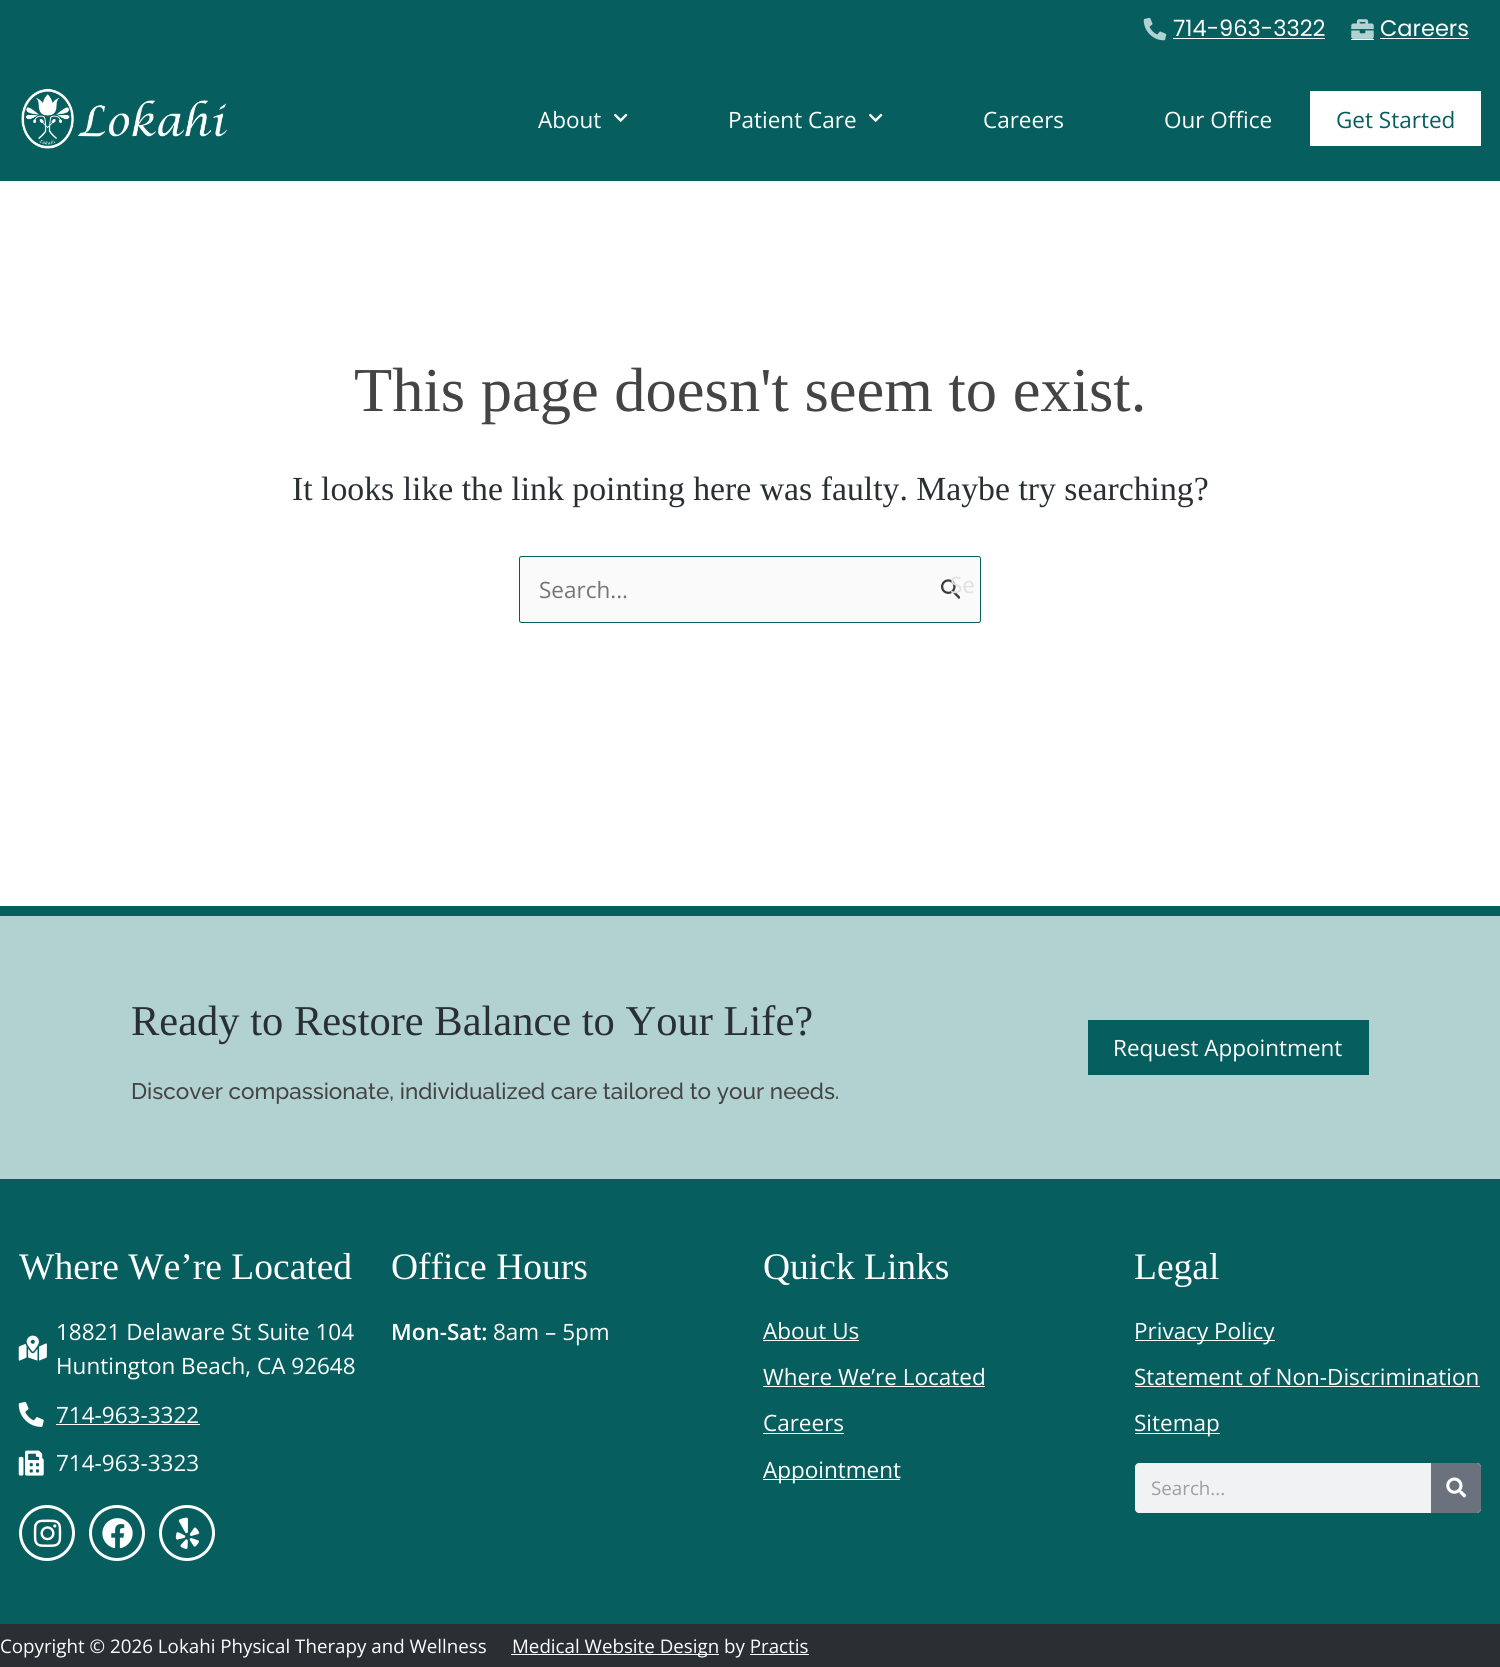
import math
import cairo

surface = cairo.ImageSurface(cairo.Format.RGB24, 1500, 1667)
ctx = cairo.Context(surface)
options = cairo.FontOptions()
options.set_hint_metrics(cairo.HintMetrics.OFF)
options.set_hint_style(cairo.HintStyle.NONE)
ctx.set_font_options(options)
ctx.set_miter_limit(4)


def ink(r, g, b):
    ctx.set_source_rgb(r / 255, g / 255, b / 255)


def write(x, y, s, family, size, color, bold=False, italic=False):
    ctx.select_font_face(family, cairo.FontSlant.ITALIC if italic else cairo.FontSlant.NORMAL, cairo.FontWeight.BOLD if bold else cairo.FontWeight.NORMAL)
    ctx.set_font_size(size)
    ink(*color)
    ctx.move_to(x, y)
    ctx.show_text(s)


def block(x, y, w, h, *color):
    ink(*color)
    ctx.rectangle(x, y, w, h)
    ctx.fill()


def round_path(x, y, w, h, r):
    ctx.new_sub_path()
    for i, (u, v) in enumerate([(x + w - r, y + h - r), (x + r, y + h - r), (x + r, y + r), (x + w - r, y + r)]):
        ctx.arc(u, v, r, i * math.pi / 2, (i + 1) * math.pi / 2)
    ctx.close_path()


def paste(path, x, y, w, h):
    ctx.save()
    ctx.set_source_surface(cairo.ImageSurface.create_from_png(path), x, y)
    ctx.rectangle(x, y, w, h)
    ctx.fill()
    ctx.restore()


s1 = dict(family="Poppins", size=22.5, color=(255, 255, 255))
s2 = dict(family="Open Sans", size=22.5, color=(255, 255, 255))
s3 = dict(family="Open Sans", size=22.5, color=(6, 94, 95))
s4 = dict(family="Liberation Serif", size=62.5, color=(68, 68, 68))
s5 = dict(family="Liberation Serif", size=33.75, color=(41, 47, 51))
s6 = dict(family="Open Sans", size=22.5, color=(117, 117, 117))
s7 = dict(family="Open Sans", size=22.5, color=(222, 225, 225))
s8 = dict(family="Liberation Serif", size=42.5, color=(41, 47, 51))
s9 = dict(family="Raleway Medium", size=22.5, color=(68, 68, 68))
s10 = dict(family="Liberation Serif", size=37.5, color=(255, 255, 255))
s11 = dict(family="Open Sans SemiBold", size=22.5, color=(255, 255, 255))
s12 = dict(family="Open Sans", size=18.75, color=(158, 158, 158))
s13 = dict(family="Open Sans", size=18.75, color=(255, 255, 255))

ink(255, 255, 255)
ctx.paint()
block(0, 0, 1500, 181, 6, 94, 95)
paste("pic1.png", 1143, 17, 24, 24)
write(1173, 36, "714-963-3322", **s1)
block(1173, 38, 152, 1, 255, 255, 255)
paste("pic2.png", 1351, 19, 23, 20)
block(1351, 39, 23, 1, 255, 255, 255)
write(1380, 36, "Careers", **s1)
block(1380, 38, 89, 1, 255, 255, 255)
paste("pic3.png", 21, 88, 206, 61)
write(538, 128, "About", **s2)
paste("pic4.png", 614, 113, 14, 9)
write(728, 128, "Patient Care", **s2)
paste("pic4.png", 869, 113, 14, 9)
write(983, 128, "Careers", **s2)
write(1164, 128, "Our Office", **s2)
block(1310, 91, 171, 55, 255, 255, 255)
write(1336, 128, "Get Started", **s3)
write(354, 411, "This page doesn't seem to exist.", **s4)
write(292, 500, "It looks like the link pointing here was faulty. Maybe try searching?", **s5)
ink(250, 250, 250)
round_path(519.5, 556.5, 461, 66, 2)
ctx.fill_preserve()
ink(6, 94, 95)
ctx.set_line_width(1)
ctx.stroke()
write(539, 598, "Search...", **s6)
paste("pic5.png", 941, 579, 19, 20)
write(950, 593, "Se", **s7)
block(0, 916, 1500, 263, 178, 209, 209)
block(0, 906, 1500, 10, 6, 94, 95)
write(131, 1035, "Ready to Restore Balance to Your Life?", **s8)
write(131, 1099, "Discover compassionate, individualized care tailored to your needs.", **s9)
block(1088, 1020, 281, 55, 6, 94, 95)
write(1113, 1056, "Request Appointment", **s2)
block(0, 1179, 1500, 445, 6, 94, 95)
write(19, 1279, "Where We’re Located", **s10)
paste("pic6.png", 18, 1335, 29, 26)
write(56, 1340, "18821 Delaware St Suite 104", **s2)
write(56, 1374, "Huntington Beach, CA 92648", **s2)
paste("pic7.png", 18, 1401, 26, 26)
write(56, 1423, "714-963-3322", **s2)
block(56, 1424, 144, 1, 255, 255, 255)
paste("pic8.png", 18, 1450, 26, 26)
write(56, 1471, "714-963-3323", **s2)
ctx.new_path()
ctx.arc(47, 1533, 26.5, 0, 2 * math.pi)
ctx.set_line_width(3)
ctx.stroke()
paste("pic9.png", 33, 1519, 29, 28)
ctx.arc(117, 1533, 26.5, 0, 2 * math.pi)
ctx.stroke()
paste("pic10.png", 102, 1518, 31, 31)
ctx.arc(187, 1533, 26.5, 0, 2 * math.pi)
ctx.stroke()
paste("pic11.png", 175, 1517, 25, 32)
write(391, 1279, "Office Hours", **s10)
write(391, 1340, "Mon-Sat:", **s11)
write(493, 1340, "8am – 5pm", **s2)
write(763, 1279, "Quick Links", **s10)
write(763, 1339, "About Us", **s2)
block(763, 1340, 96, 1, 255, 255, 255)
write(763, 1385, "Where We’re Located", **s2)
block(763, 1386, 222, 1, 255, 255, 255)
write(763, 1431, "Careers", **s2)
block(763, 1433, 81, 1, 255, 255, 255)
block(763, 1479, 137, 1, 255, 255, 255)
write(763, 1478, "Appointment", **s2)
write(1134, 1279, "Legal", **s10)
block(1135, 1340, 140, 1, 255, 255, 255)
write(1134, 1339, "Privacy Policy", **s2)
write(1134, 1385, "Statement of Non-Discrimination", **s2)
block(1135, 1386, 345, 1, 255, 255, 255)
block(1135, 1433, 85, 1, 255, 255, 255)
write(1134, 1431, "Sitemap", **s2)
ink(241, 242, 243)
round_path(1135, 1463, 346, 50, 4)
ctx.fill()
write(1151, 1495, "Search...", **s12)
ink(105, 114, 125)
ctx.new_path()
ctx.move_to(1431, 1463)
ctx.line_to(1477, 1463)
ctx.curve_to(1479, 1463, 1481, 1465, 1481, 1467)
ctx.line_to(1481, 1509)
ctx.curve_to(1481, 1511, 1479, 1513, 1477, 1513)
ctx.line_to(1431, 1513)
ctx.close_path()
ctx.fill()
paste("pic12.png", 1446, 1477, 21, 21)
block(0, 1624, 1500, 43, 41, 47, 51)
write(0, 1653, "Copyright © 2026 Lokahi Physical Therapy and Wellness", **s13)
block(511, 1654, 208, 1, 255, 255, 255)
write(512, 1653, "Medical Website Design by Practis", **s13)
block(750, 1654, 59, 1, 255, 255, 255)
surface.write_to_png("screenshot.png")
